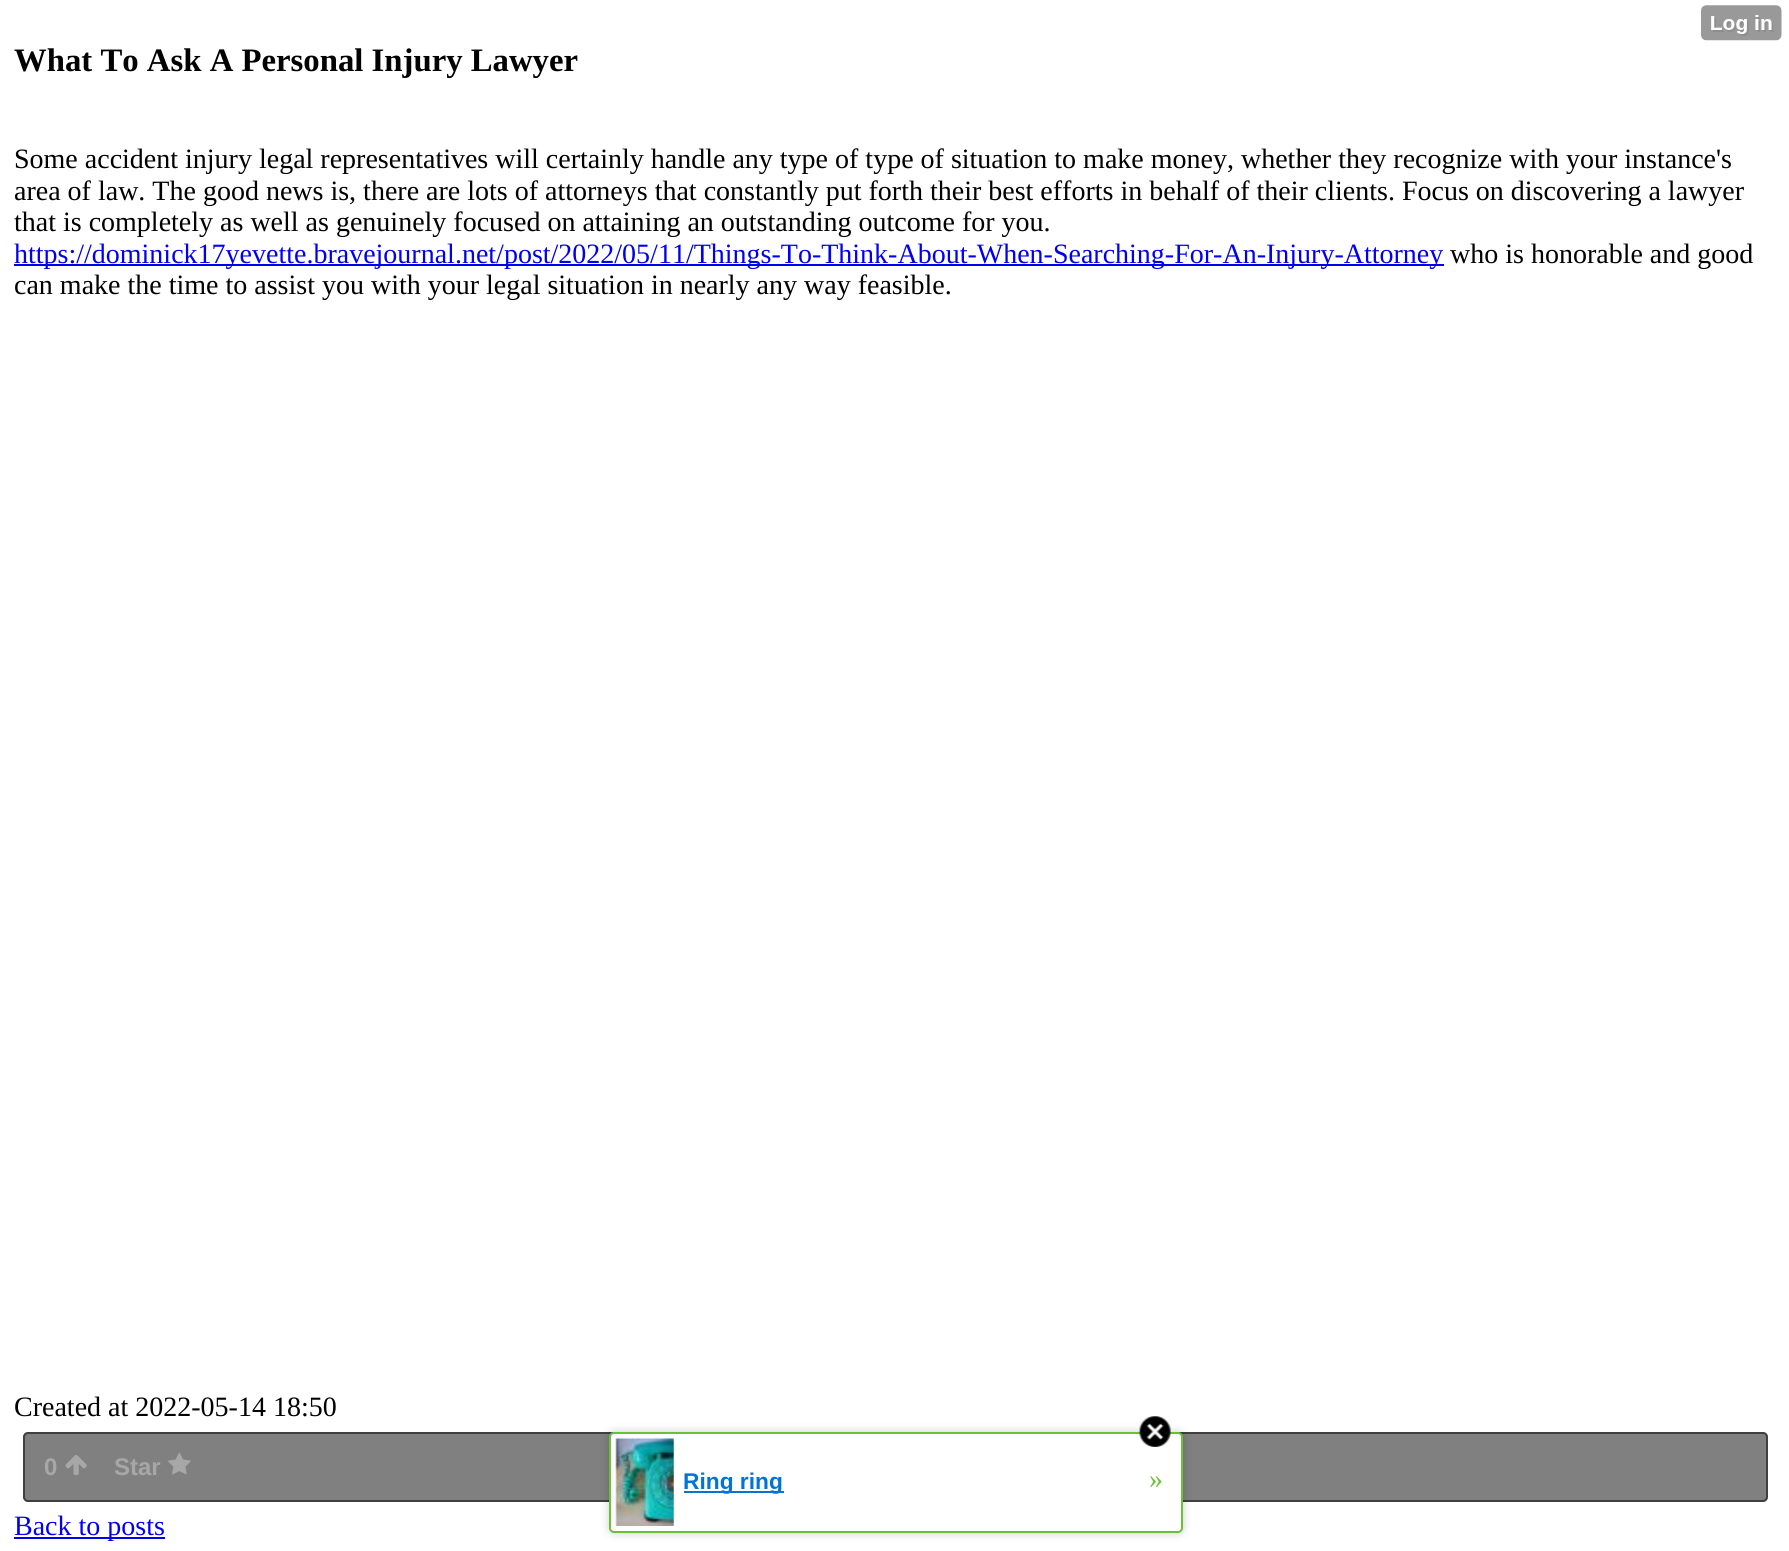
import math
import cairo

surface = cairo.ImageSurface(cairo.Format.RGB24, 1789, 1551)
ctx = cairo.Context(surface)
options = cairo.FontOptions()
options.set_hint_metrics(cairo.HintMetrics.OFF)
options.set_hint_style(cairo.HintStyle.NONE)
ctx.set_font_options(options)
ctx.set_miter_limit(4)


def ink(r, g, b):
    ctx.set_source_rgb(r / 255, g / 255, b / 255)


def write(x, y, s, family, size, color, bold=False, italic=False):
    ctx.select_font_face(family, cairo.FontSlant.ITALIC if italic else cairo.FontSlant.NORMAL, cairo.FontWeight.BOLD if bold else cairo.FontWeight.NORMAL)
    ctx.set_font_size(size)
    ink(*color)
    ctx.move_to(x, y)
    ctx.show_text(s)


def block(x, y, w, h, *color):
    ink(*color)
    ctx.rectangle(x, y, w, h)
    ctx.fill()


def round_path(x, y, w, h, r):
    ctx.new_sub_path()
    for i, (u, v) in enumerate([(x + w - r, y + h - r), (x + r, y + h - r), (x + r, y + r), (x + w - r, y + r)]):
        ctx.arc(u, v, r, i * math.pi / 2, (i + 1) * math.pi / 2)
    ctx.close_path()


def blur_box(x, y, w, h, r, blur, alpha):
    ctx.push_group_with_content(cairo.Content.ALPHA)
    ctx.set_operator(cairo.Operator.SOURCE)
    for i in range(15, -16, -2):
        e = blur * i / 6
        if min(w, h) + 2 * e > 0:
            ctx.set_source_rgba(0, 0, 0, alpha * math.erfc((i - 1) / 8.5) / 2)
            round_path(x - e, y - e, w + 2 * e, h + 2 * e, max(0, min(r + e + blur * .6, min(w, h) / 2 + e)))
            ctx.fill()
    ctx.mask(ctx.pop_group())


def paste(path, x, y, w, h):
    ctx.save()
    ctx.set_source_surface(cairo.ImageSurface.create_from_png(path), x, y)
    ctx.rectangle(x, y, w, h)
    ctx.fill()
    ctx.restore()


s1 = dict(family="Liberation Serif", size=32.75, color=(0, 0, 0), bold=True)
s2 = dict(family="Liberation Serif", size=28, color=(0, 0, 0))
s3 = dict(family="Liberation Serif", size=28, color=(0, 0, 238))
s4 = dict(family="Liberation Sans", size=24, color=(167, 167, 167), bold=True)
s5 = dict(family="Liberation Sans", size=22.75, color=(2, 116, 212), bold=True)
s6 = dict(family="Liberation Serif", size=28, color=(107, 193, 53))

ink(255, 255, 255)
ctx.paint()
paste("pic1.png", 1701, 5, 81, 36)
write(14, 71, "What To Ask A Personal Injury Lawyer", **s1)
write(14, 168, "Some accident injury legal representatives will certainly handle any type of type of situation to make money, whether they recognize with your instance's", **s2)
write(14, 200, "area of law. The good news is, there are lots of attorneys that constantly put forth their best efforts in behalf of their clients. Focus on discovering a lawyer", **s2)
write(14, 231, "that is completely as well as genuinely focused on attaining an outstanding outcome for you.", **s2)
block(14, 264, 1430, 2, 0, 0, 238)
write(14, 263, "https://dominick17yevette.bravejournal.net/post/2022/05/11/Things-To-Think-About-When-Searching-For-An-Injury-Attorney", **s3)
write(1450, 263, "who is honorable and good", **s2)
write(14, 294, "can make the time to assist you with your legal situation in nearly any way feasible.", **s2)
write(14, 1416, "Created at 2022-05-14 18:50", **s2)
ink(128, 128, 128)
round_path(23, 1432, 1745, 70, 5)
ctx.fill()
round_path(24, 1433, 1743, 68, 4)
ctx.set_source_rgba(0, 0, 0, 0.5)
ctx.stroke()
write(44, 1475, "0", **s4)
paste("pic2.png", 65, 1455, 22, 20)
write(114, 1475, "Star", **s4)
paste("pic3.png", 168, 1452, 23, 23)
block(14, 1537, 151, 2, 0, 0, 238)
write(14, 1535, "Back to posts", **s3)
ink(0, 0, 0)
blur_box(609, 1432, 574, 101, 5, 4.5, 0.2)
ink(255, 255, 255)
round_path(610, 1433, 572, 99, 4)
ctx.fill_preserve()
ink(107, 193, 53)
ctx.stroke()
paste("pic4.png", 1139, 1416, 32, 32)
paste("pic5.png", 615, 1438, 59, 88)
block(684, 1491, 100, 2, 2, 116, 212)
write(683, 1489, "Ring ring", **s5)
write(1149, 1488, "»", **s6)
surface.write_to_png("screenshot.png")
